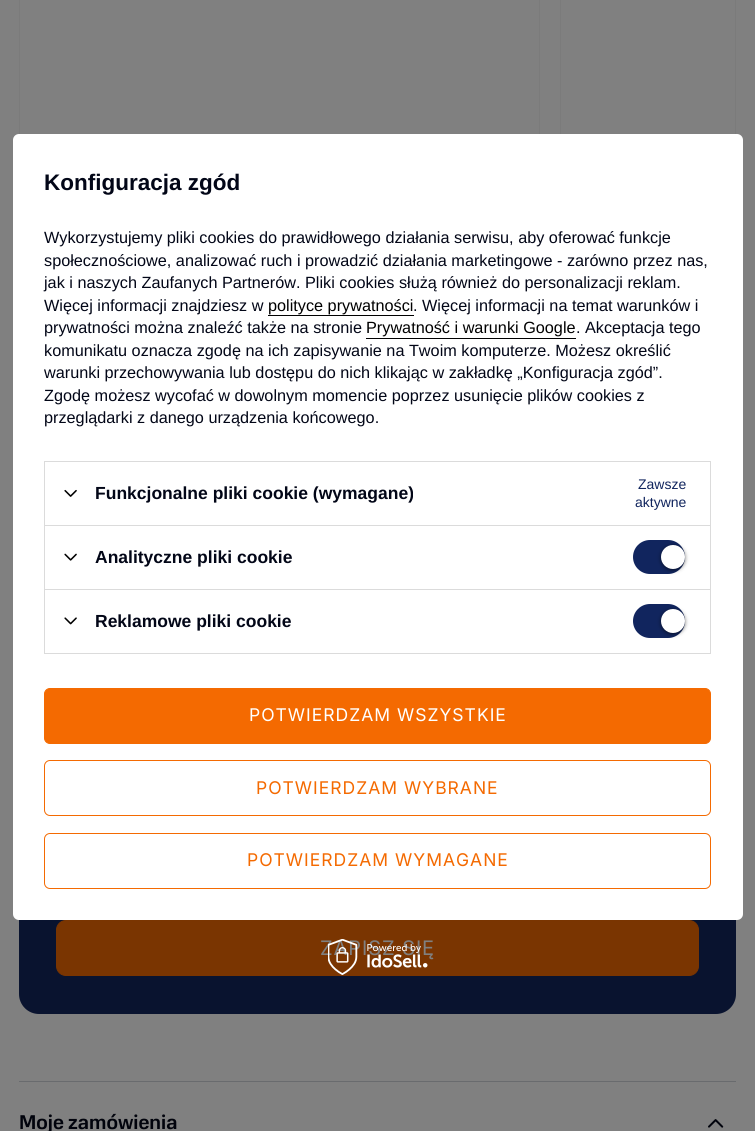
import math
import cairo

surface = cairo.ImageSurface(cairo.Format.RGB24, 755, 1131)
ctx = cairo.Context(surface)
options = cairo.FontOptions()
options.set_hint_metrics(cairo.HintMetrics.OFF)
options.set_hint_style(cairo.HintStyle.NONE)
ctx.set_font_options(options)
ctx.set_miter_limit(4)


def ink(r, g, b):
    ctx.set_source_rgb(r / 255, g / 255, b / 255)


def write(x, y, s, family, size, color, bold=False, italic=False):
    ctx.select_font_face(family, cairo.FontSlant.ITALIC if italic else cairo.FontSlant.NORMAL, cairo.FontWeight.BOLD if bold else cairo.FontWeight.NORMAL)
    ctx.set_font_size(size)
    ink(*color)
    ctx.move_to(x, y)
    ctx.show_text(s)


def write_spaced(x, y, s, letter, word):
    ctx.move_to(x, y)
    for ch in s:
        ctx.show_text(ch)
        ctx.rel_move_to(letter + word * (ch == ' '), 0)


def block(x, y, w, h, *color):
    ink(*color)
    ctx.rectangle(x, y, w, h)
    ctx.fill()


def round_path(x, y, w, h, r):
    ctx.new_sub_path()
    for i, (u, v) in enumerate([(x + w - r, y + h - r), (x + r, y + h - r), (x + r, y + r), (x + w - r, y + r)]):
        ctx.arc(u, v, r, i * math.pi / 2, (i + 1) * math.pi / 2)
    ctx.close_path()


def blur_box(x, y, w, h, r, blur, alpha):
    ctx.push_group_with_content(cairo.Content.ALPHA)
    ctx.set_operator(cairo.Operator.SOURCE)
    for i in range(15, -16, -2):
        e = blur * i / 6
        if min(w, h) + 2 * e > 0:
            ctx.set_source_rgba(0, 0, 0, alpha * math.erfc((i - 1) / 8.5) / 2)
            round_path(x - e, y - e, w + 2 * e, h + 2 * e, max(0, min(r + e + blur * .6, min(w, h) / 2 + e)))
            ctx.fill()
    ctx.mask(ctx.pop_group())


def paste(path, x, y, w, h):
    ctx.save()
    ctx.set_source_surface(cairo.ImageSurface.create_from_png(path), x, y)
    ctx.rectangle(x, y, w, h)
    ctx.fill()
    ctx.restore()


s1 = dict(family="Liberation Sans", size=22.5, color=(2, 6, 23), bold=True)
s2 = dict(family="Liberation Sans", size=16.25, color=(2, 6, 23))
s3 = dict(family="Liberation Sans", size=16.25, color=(0, 0, 0))
s4 = dict(family="Liberation Sans", size=17.5, color=(2, 6, 23), bold=True)
s5 = dict(family="Liberation Sans", size=14, color=(17, 37, 94))
s6 = dict(family="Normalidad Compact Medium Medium", size=20, color=(1, 3, 12))

ink(128, 128, 128)
ctx.paint()
ctx.rectangle(19.5, -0.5, 520, 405)
ink(123, 123, 123)
ctx.set_line_width(1)
ctx.stroke()
ctx.rectangle(560.5, -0.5, 175, 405)
ctx.stroke()
ink(9, 19, 47)
round_path(19, 475, 717, 539, 20)
ctx.fill()
ink(255, 255, 255)
round_path(13, 134, 730, 786, 6)
ctx.fill()
write(44, 190, "Konfiguracja zgód", **s1)
write(44, 243, "Wykorzystujemy pliki cookies do prawidłowego działania serwisu, aby oferować funkcje", **s2)
write(44, 266, "społecznościowe, analizować ruch i prowadzić działania marketingowe - zarówno przez nas,", **s2)
write(44, 288, "jak i naszych Zaufanych Partnerów. Pliki cookies służą również do personalizacji reklam.", **s2)
write(44, 311, "Więcej informacji znajdziesz w", **s2)
write(268, 311, "polityce prywatności", **s3)
block(268, 315, 146, 1, 0, 0, 0)
write(413, 311, ". Więcej informacji na temat warunków i", **s2)
write(44, 333, "prywatności można znaleźć także na stronie", **s2)
write(366, 333, "Prywatność i warunki Google", **s3)
block(366, 338, 210, 1, 0, 0, 0)
write(576, 333, ". Akceptacja tego", **s2)
write(44, 356, "komunikatu oznacza zgodę na ich zapisywanie na Twoim komputerze. Możesz określić", **s2)
write(44, 378, "warunki przechowywania lub dostępu do nich klikając w zakładkę „Konfiguracja zgód”.", **s2)
write(44, 401, "Zgodę możesz wycofać w dowolnym momencie poprzez usunięcie plików cookies z", **s2)
write(44, 423, "przeglądarki z danego urządzenia końcowego.", **s2)
block(44, 461, 667, 1, 219, 219, 219)
block(710, 461, 1, 64, 219, 219, 219)
block(44, 461, 1, 64, 219, 219, 219)
paste("pic1.png", 64, 489, 13, 8)
write(95, 499, "Funkcjonalne pliki cookie (wymagane)", **s4)
write(638, 489, "Zawsze", **s5)
write(635, 507, "aktywne", **s5)
block(44, 525, 667, 1, 219, 219, 219)
block(710, 525, 1, 64, 219, 219, 219)
block(44, 525, 1, 64, 219, 219, 219)
paste("pic2.png", 64, 553, 13, 8)
write(95, 563, "Analityczne pliki cookie", **s4)
ink(17, 37, 94)
round_path(633, 540, 52, 34, 17)
ctx.fill()
ink(0, 0, 0)
blur_box(661, 546, 24, 24, 12, 2, 0.56)
ink(255, 255, 255)
ctx.arc(673, 557, 12, 0, 2 * math.pi)
ctx.fill()
ctx.rectangle(44.5, 589.5, 666, 64)
ink(219, 219, 219)
ctx.stroke()
paste("pic3.png", 64, 617, 13, 8)
write(95, 627, "Reklamowe pliki cookie", **s4)
ink(17, 37, 94)
round_path(633, 604, 52, 34, 17)
ctx.fill()
ink(0, 0, 0)
blur_box(661, 610, 24, 24, 12, 2, 0.56)
ink(255, 255, 255)
ctx.arc(673, 621, 12, 0, 2 * math.pi)
ctx.fill()
ink(244, 106, 1)
round_path(44.5, 688.5, 666, 55, 5.5)
ctx.fill_preserve()
ctx.stroke()
ctx.select_font_face("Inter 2")
ink(255, 255, 255)
write_spaced(249, 721, "POTWIERDZAM WSZYSTKIE", 1, 0)
round_path(44.5, 760.5, 666, 55, 5.5)
ink(244, 106, 1)
ctx.stroke()
write_spaced(256, 794, "POTWIERDZAM WYBRANE", 1, 0)
round_path(44.5, 833.5, 666, 55, 5.5)
ctx.stroke()
write_spaced(247, 866, "POTWIERDZAM WYMAGANE", 1, 0)
ink(122, 53, 1)
round_path(56.5, 920.5, 642, 55, 9.5)
ctx.fill_preserve()
ctx.stroke()
ctx.select_font_face("Inter")
ctx.set_font_size(20)
ink(128, 128, 128)
write_spaced(320, 955, "ZAPISZ SI", 1, 0)
ctx.select_font_face("Inter 2")
write_spaced(422, 955, "Ę", 1, 0)
paste("pic4.png", 328, 939, 100, 36)
block(19, 1081, 717, 1, 105, 107, 110)
write(19, 1129, "Moje zamówienia", **s6)
paste("pic5.png", 708, 1119, 16, 9)
surface.write_to_png("screenshot.png")
